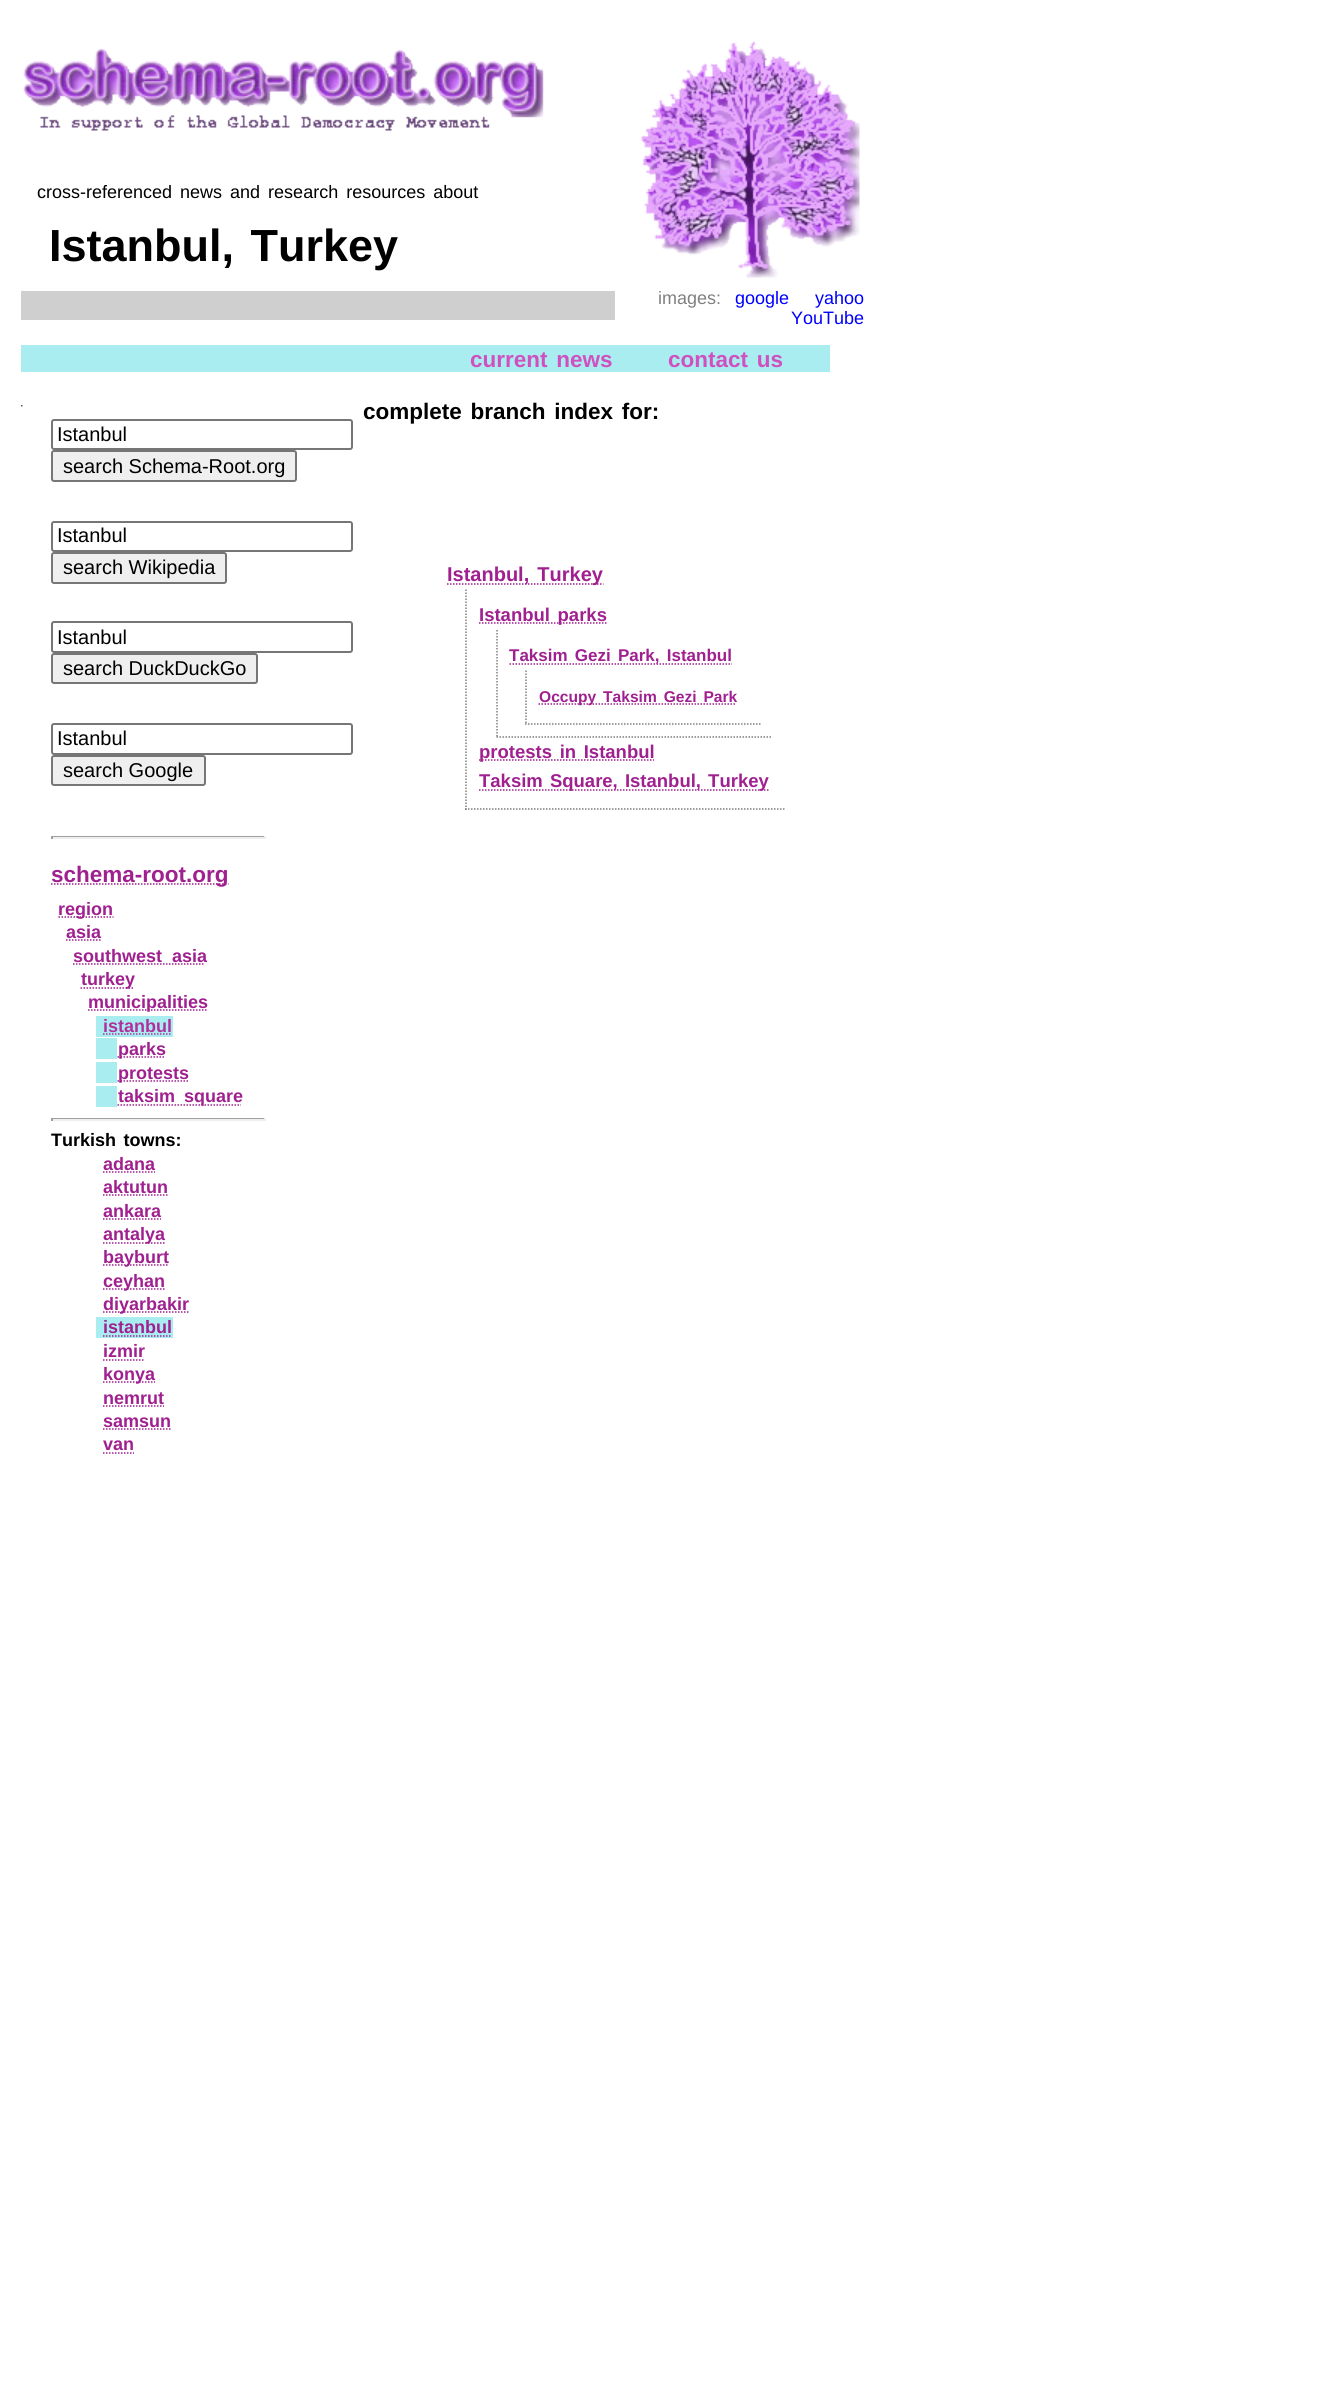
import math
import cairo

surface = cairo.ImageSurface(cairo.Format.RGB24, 1338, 2381)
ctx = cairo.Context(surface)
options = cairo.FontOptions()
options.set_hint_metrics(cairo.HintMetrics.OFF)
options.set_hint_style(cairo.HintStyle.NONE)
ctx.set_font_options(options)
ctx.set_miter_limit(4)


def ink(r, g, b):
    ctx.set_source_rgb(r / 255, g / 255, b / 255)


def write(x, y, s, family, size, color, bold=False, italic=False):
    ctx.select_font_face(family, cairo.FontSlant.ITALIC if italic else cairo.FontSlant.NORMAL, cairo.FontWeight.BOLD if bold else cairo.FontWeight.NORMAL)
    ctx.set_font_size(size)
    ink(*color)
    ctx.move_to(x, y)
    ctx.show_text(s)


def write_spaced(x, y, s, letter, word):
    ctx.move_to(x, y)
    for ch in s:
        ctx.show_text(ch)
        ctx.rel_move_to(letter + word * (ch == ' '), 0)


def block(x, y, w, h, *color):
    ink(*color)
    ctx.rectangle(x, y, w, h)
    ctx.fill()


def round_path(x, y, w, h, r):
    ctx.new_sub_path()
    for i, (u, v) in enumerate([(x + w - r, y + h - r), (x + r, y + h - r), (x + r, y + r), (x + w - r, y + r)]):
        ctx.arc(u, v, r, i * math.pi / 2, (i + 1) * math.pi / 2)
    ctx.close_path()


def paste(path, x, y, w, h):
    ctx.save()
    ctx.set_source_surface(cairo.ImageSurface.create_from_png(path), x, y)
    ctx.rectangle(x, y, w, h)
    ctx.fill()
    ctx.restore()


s1 = dict(family="Liberation Sans", size=18, color=(128, 128, 128))
s2 = dict(family="Liberation Sans", size=18, color=(0, 0, 255))
s3 = dict(family="Liberation Sans", size=20, color=(0, 0, 0))
s4 = dict(family="Liberation Sans", size=22.5, color=(160, 32, 144), bold=True)
s5 = dict(family="Liberation Sans", size=18, color=(160, 32, 144), bold=True)
s6 = dict(family="Liberation Sans", size=18, color=(176, 48, 160), bold=True)

ink(255, 255, 255)
ctx.paint()
paste("pic1.png", 23, 48, 521, 83)
ctx.select_font_face("Liberation Sans")
ctx.set_font_size(18)
ink(0, 0, 0)
write_spaced(37, 198, "cross-referenced news and research resources about", 0, 3)
ctx.select_font_face("Liberation Sans", cairo.FontSlant.NORMAL, cairo.FontWeight.BOLD)
ctx.set_font_size(45)
write_spaced(49, 261, "Istanbul, Turkey", 0, 4)
block(21, 291, 594, 29, 207, 207, 207)
paste("pic2.png", 640, 40, 220, 238)
write(658, 304, "images:", **s1)
write(735, 304, "google", **s2)
write(815, 304, "yahoo", **s2)
write(791, 324, "YouTube", **s2)
block(21, 345, 809, 27, 170, 237, 240)
ctx.select_font_face("Liberation Sans", cairo.FontSlant.NORMAL, cairo.FontWeight.BOLD)
ctx.set_font_size(22.5)
ink(208, 80, 192)
write_spaced(470, 367, "current news", 0, 2.5)
write_spaced(668, 367, "contact us", 0, 2.5)
round_path(52, 420, 300, 29, 2)
ink(118, 118, 118)
ctx.stroke()
write(57, 441, "Istanbul", **s3)
ink(239, 239, 239)
round_path(52, 451, 244, 30, 2)
ctx.fill_preserve()
ink(118, 118, 118)
ctx.stroke()
write(63, 473, "search Schema-Root.org", **s3)
round_path(52, 522, 300, 29, 2)
ink(118, 118, 118)
ctx.stroke()
write(57, 542, "Istanbul", **s3)
ink(239, 239, 239)
round_path(52, 553, 174, 30, 2)
ctx.fill_preserve()
ink(118, 118, 118)
ctx.stroke()
write(63, 574, "search Wikipedia", **s3)
round_path(52, 622, 300, 30, 2)
ink(118, 118, 118)
ctx.stroke()
write(57, 644, "Istanbul", **s3)
ink(239, 239, 239)
round_path(52, 654, 205, 29, 2)
ctx.fill_preserve()
ink(118, 118, 118)
ctx.stroke()
write(63, 675, "search DuckDuckGo", **s3)
round_path(52, 724, 300, 30, 2)
ink(118, 118, 118)
ctx.stroke()
write(57, 745, "Istanbul", **s3)
ink(239, 239, 239)
round_path(52, 756, 153, 29, 2)
ctx.fill_preserve()
ink(118, 118, 118)
ctx.stroke()
write(63, 777, "search Google", **s3)
block(51, 836, 215, 1, 159, 159, 159)
block(264, 836, 2, 3, 238, 238, 238)
block(51, 837, 215, 2, 238, 238, 238)
block(51, 836, 2, 3, 159, 159, 159)
ctx.new_path()
ctx.move_to(51, 884)
ctx.line_to(228.5, 884)
ink(160, 32, 144)
ctx.set_line_width(1.5)
ctx.set_dash([1.5, 1.5])
ctx.stroke()
write(51, 882, "schema-root.org", **s4)
ctx.new_path()
ctx.move_to(58.5, 917)
ctx.line_to(113.5, 917)
ctx.stroke()
write(58, 915, "region", **s5)
write(66, 938, "asia", **s5)
ctx.new_path()
ctx.move_to(66, 940)
ctx.line_to(101, 940)
ctx.stroke()
write(73, 962, "southwest", **s5)
write(172, 962, "asia", **s5)
ctx.new_path()
ctx.move_to(73, 964)
ctx.line_to(204.5, 964)
ctx.stroke()
ctx.new_path()
ctx.move_to(80.5, 988)
ctx.line_to(134.5, 988)
ctx.stroke()
write(81, 985, "turkey", **s5)
ctx.new_path()
ctx.move_to(88, 1010)
ctx.line_to(208, 1010)
ctx.stroke()
write(88, 1008, "municipalities", **s5)
block(96, 1016, 77, 21, 170, 237, 240)
write(103, 1032, "istanbul", **s6)
ctx.new_path()
ctx.move_to(103, 1034)
ctx.line_to(172, 1034)
ctx.stroke()
block(96, 1038, 21, 21, 170, 237, 240)
ctx.new_path()
ctx.move_to(117.5, 1057)
ctx.line_to(165.5, 1057)
ink(160, 32, 144)
ctx.stroke()
write(118, 1055, "parks", **s5)
block(96, 1062, 21, 21, 170, 237, 240)
ctx.new_path()
ctx.move_to(117.5, 1081)
ctx.line_to(188.5, 1081)
ink(160, 32, 144)
ctx.stroke()
write(118, 1079, "protests", **s5)
block(96, 1086, 21, 21, 170, 237, 240)
ctx.new_path()
ctx.move_to(117.5, 1105)
ctx.line_to(241, 1105)
ink(160, 32, 144)
ctx.stroke()
write(118, 1102, "taksim", **s5)
write(184, 1102, "square", **s5)
block(51, 1118, 215, 1, 159, 159, 159)
block(264, 1118, 2, 3, 238, 238, 238)
block(51, 1119, 215, 2, 238, 238, 238)
block(51, 1118, 2, 3, 159, 159, 159)
ink(0, 0, 0)
write_spaced(51, 1146, "Turkish towns:", 0, 2.5)
write(103, 1170, "adana", **s5)
ctx.new_path()
ctx.move_to(103, 1172)
ctx.line_to(155, 1172)
ctx.stroke()
write(103, 1193, "aktutun", **s5)
ctx.new_path()
ctx.move_to(103, 1195)
ctx.line_to(168, 1195)
ctx.stroke()
write(103, 1217, "ankara", **s5)
ctx.new_path()
ctx.move_to(103, 1219)
ctx.line_to(161, 1219)
ctx.stroke()
ctx.new_path()
ctx.move_to(103, 1243)
ctx.line_to(165, 1243)
ctx.stroke()
write(103, 1240, "antalya", **s5)
ctx.new_path()
ctx.move_to(103, 1265)
ctx.line_to(169, 1265)
ctx.stroke()
write(103, 1263, "bayburt", **s5)
ctx.new_path()
ctx.move_to(103, 1289)
ctx.line_to(165, 1289)
ctx.stroke()
write(103, 1287, "ceyhan", **s5)
ctx.new_path()
ctx.move_to(103, 1312)
ctx.line_to(189, 1312)
ctx.stroke()
write(103, 1310, "diyarbakir", **s5)
block(96, 1317, 77, 21, 170, 237, 240)
write(103, 1333, "istanbul", **s5)
ctx.new_path()
ctx.move_to(103, 1336)
ctx.line_to(172, 1336)
ctx.stroke()
write(103, 1357, "izmir", **s5)
ctx.new_path()
ctx.move_to(103, 1360)
ctx.line_to(145, 1360)
ctx.stroke()
ctx.new_path()
ctx.move_to(103, 1382)
ctx.line_to(155, 1382)
ctx.stroke()
write(103, 1380, "konya", **s5)
write(103, 1404, "nemrut", **s5)
ctx.new_path()
ctx.move_to(103, 1406)
ctx.line_to(164, 1406)
ctx.stroke()
write(103, 1427, "samsun", **s5)
ctx.new_path()
ctx.move_to(103, 1429)
ctx.line_to(171, 1429)
ctx.stroke()
write(103, 1450, "van", **s5)
ctx.new_path()
ctx.move_to(103, 1453)
ctx.line_to(134, 1453)
ctx.stroke()
paste("pic3.png", 21, 405, 2, 2)
ctx.set_font_size(22.5)
ink(0, 0, 0)
write_spaced(363, 419, "complete branch index for:", 0, 2.5)
ctx.new_path()
ctx.move_to(447, 584)
ctx.line_to(603.5, 584)
ink(160, 32, 144)
ctx.stroke()
ctx.set_font_size(20)
write_spaced(447, 581, "Istanbul, Turkey", 0, 2.5)
ctx.new_path()
ctx.move_to(465, 809)
ctx.line_to(784.5, 809)
ink(128, 128, 128)
ctx.stroke()
ctx.new_path()
ctx.move_to(466, 589.5)
ctx.line_to(466, 810)
ctx.stroke()
ctx.new_path()
ctx.move_to(479, 623)
ctx.line_to(606.5, 623)
ink(160, 32, 144)
ctx.stroke()
ctx.set_font_size(18.5)
write_spaced(479, 621, "Istanbul parks", 0, 2.5)
ctx.new_path()
ctx.move_to(496.5, 737)
ctx.line_to(772.5, 737)
ink(128, 128, 128)
ctx.stroke()
ctx.new_path()
ctx.move_to(497, 630)
ctx.line_to(497, 738)
ctx.stroke()
ctx.new_path()
ctx.move_to(509.5, 664)
ctx.line_to(732, 664)
ink(160, 32, 144)
ctx.stroke()
ctx.set_font_size(17)
write_spaced(509, 661, "Taksim Gezi Park, Istanbul", 0, 2.5)
ctx.new_path()
ctx.move_to(525, 724)
ctx.line_to(760.5, 724)
ink(128, 128, 128)
ctx.stroke()
ctx.new_path()
ctx.move_to(526, 670.5)
ctx.line_to(526, 724.5)
ctx.stroke()
ctx.new_path()
ctx.move_to(538.5, 704)
ctx.line_to(736.5, 704)
ink(160, 32, 144)
ctx.stroke()
ctx.set_font_size(15.6)
write_spaced(539, 702, "Occupy Taksim Gezi Park", 0, 2.5)
ctx.new_path()
ctx.move_to(479, 760)
ctx.line_to(654, 760)
ctx.stroke()
ctx.set_font_size(18.5)
write_spaced(479, 758, "protests in Istanbul", 0, 2.5)
ctx.new_path()
ctx.move_to(479, 790)
ctx.line_to(769, 790)
ctx.stroke()
write_spaced(479, 787, "Taksim Square, Istanbul, Turkey", 0, 2)
surface.write_to_png("screenshot.png")
